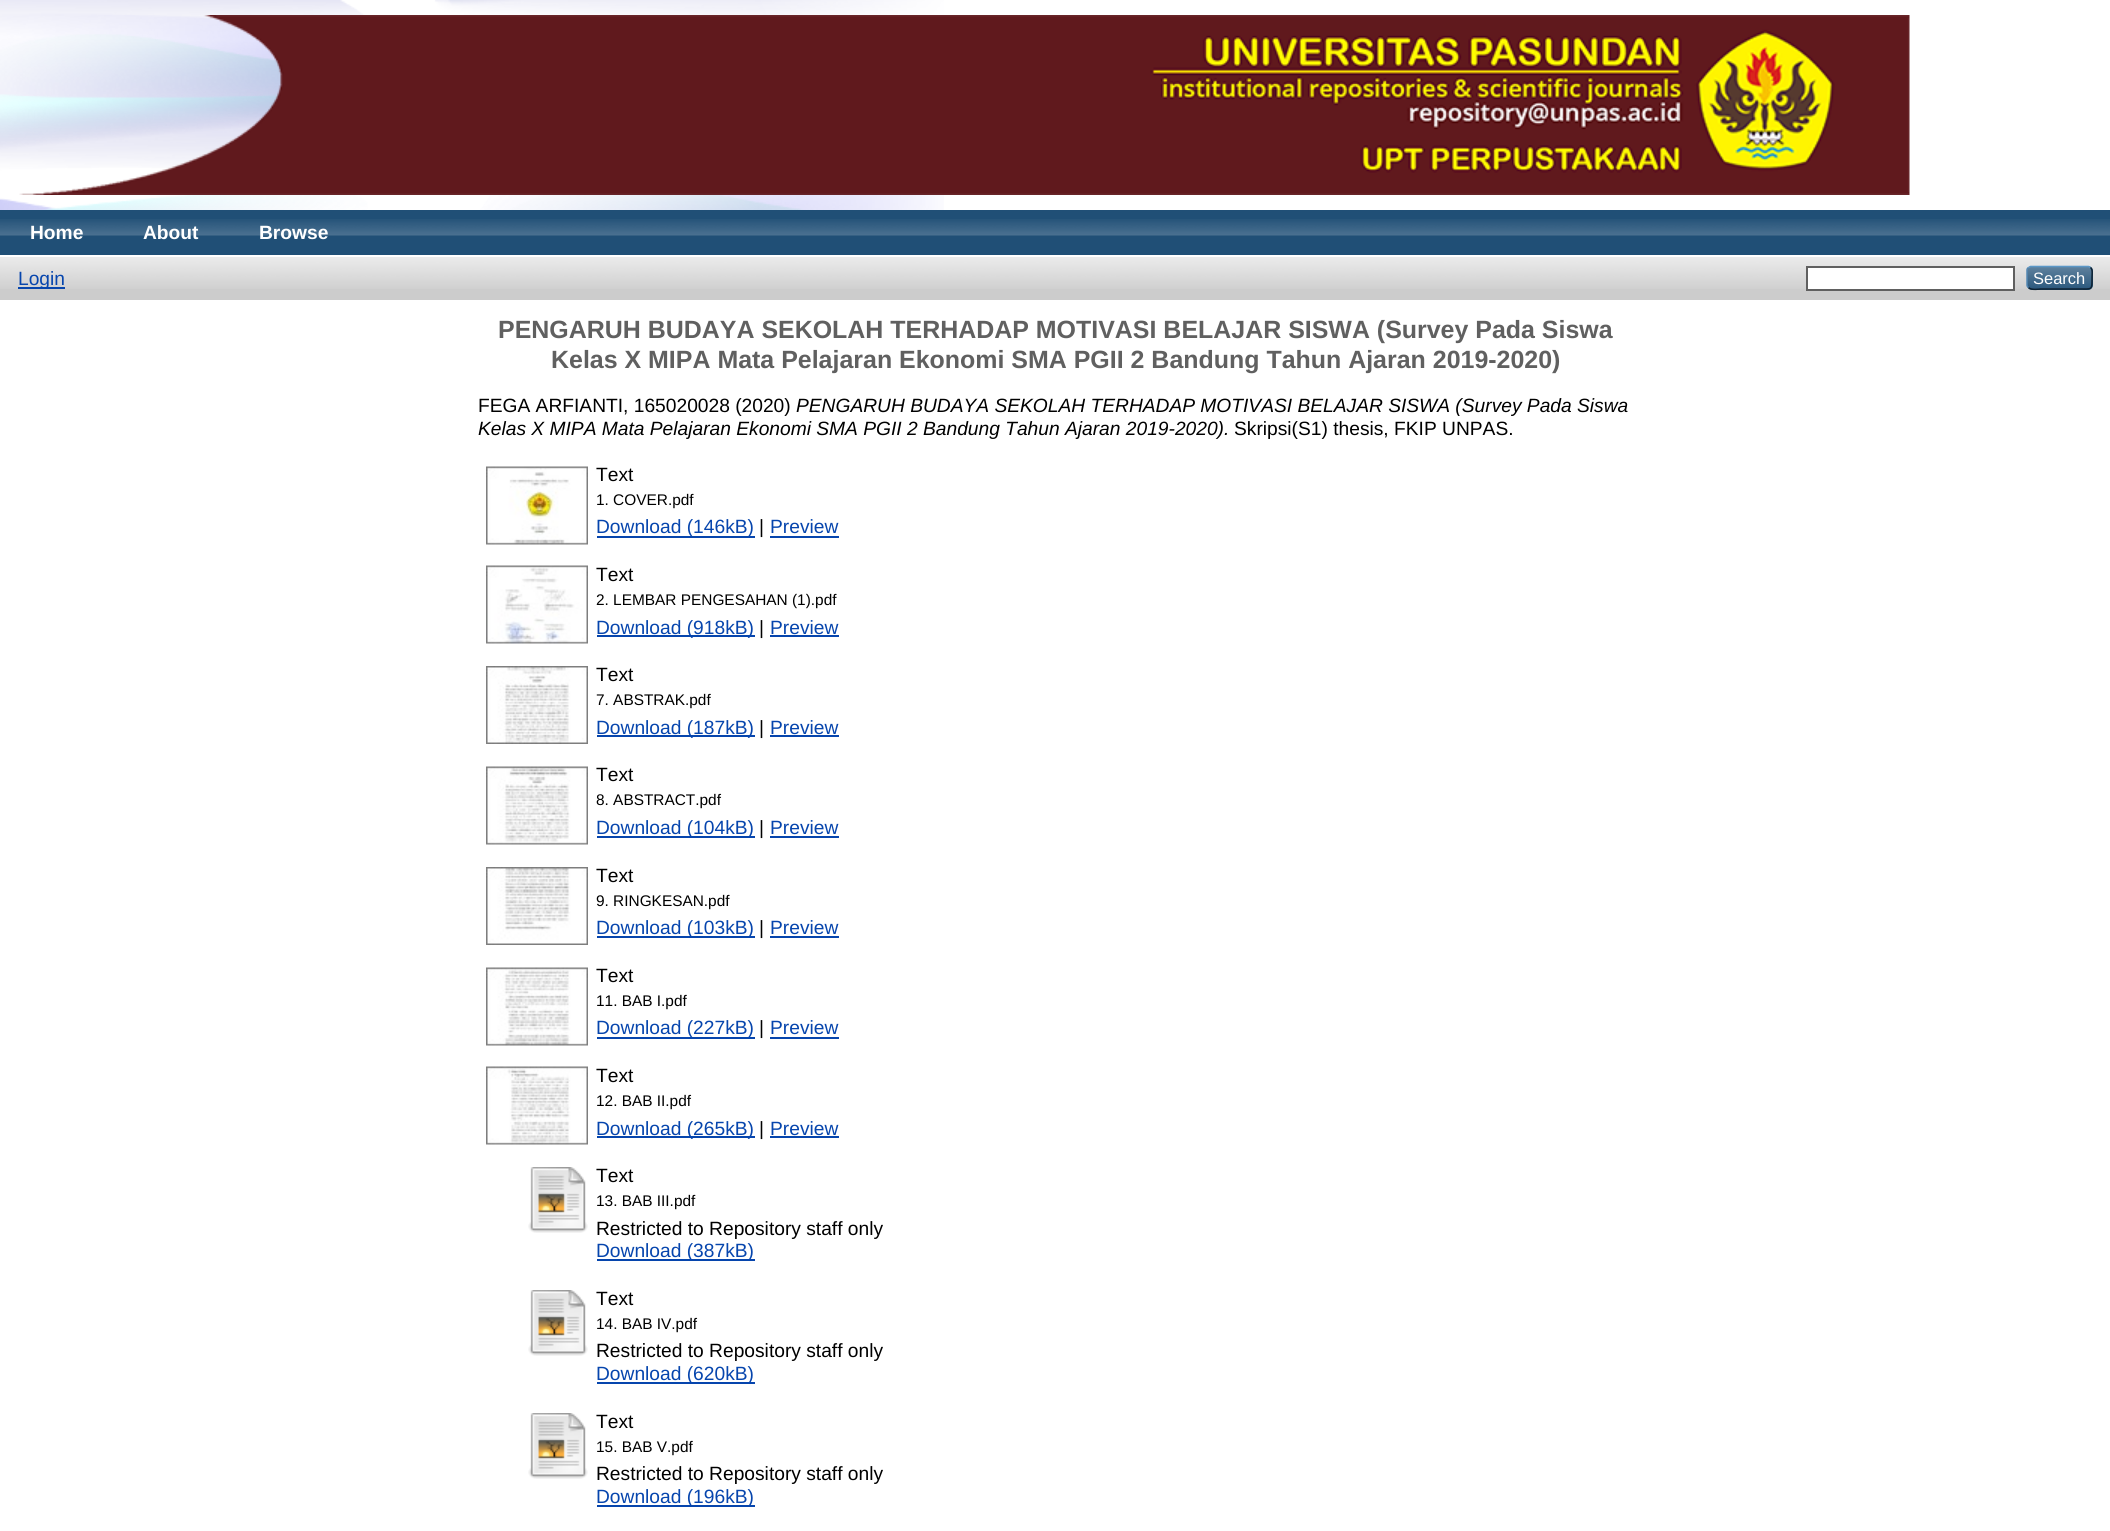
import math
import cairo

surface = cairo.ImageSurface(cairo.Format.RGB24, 2110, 1531)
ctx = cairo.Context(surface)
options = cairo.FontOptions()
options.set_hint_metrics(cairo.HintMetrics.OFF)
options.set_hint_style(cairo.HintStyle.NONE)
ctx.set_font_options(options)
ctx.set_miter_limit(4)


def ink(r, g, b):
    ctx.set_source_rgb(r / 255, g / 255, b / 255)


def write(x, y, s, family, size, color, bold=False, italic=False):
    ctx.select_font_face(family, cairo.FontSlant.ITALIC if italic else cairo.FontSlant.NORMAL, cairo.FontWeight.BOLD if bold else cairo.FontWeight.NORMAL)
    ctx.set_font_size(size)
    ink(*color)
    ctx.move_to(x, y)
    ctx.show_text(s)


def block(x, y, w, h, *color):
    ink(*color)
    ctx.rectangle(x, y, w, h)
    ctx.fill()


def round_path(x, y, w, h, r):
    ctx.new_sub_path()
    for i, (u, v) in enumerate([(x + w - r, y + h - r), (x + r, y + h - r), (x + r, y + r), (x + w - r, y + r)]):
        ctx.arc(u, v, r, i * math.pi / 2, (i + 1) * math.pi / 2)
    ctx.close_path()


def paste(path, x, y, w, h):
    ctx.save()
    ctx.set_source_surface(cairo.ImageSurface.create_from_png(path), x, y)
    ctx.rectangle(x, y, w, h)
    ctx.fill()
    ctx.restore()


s1 = dict(family="Liberation Sans", size=19.2, color=(255, 255, 255), bold=True)
s2 = dict(family="Liberation Sans", size=19.2, color=(6, 69, 173))
s3 = dict(family="Liberation Sans", size=16.5, color=(255, 255, 255))
s4 = dict(family="Liberation Sans", size=24.95, color=(96, 96, 96), bold=True)
s5 = dict(family="Liberation Sans", size=19.2, color=(0, 0, 0))
s6 = dict(family="Liberation Sans", size=19.2, color=(0, 0, 0), italic=True)
s7 = dict(family="Liberation Sans", size=15.4, color=(0, 0, 0))

ink(255, 255, 255)
ctx.paint()
paste("pic1.png", 0, 0, 944, 210)
paste("pic2.png", 19, 15, 1891, 180)
block(0, 210, 2110, 45, 32, 79, 118)
paste("pic3.png", 0, 219, 2110, 17)
write(30, 239, "Home", **s1)
write(143, 239, "About", **s1)
write(259, 239, "Browse", **s1)
block(0, 257, 2110, 43, 204, 204, 204)
paste("pic4.png", 0, 257, 2110, 32)
block(18, 287, 47, 2, 6, 69, 173)
write(18, 285, "Login", **s2)
ink(255, 255, 255)
ctx.rectangle(1807, 267, 207, 23)
ctx.fill_preserve()
ink(96, 96, 96)
ctx.stroke()
ink(31, 79, 118)
round_path(2027, 266, 66, 24, 5)
ctx.fill()
paste("pic5.png", 2027, 266, 66, 23)
ctx.new_path()
ctx.move_to(2028.5, 267.5)
ctx.line_to(2030.5, 266.5)
ctx.line_to(2088.5, 266.5)
ctx.line_to(2090.5, 267.5)
ink(91, 151, 199)
ctx.set_line_width(1.5)
ctx.stroke()
ctx.new_path()
ctx.move_to(2090.5, 267.5)
ctx.curve_to(2093, 269.5, 2092, 274.5, 2092, 277.5)
ctx.curve_to(2092, 290.5, 2092.5, 289, 2078.5, 289)
ctx.line_to(2040.5, 289)
ctx.curve_to(2040, 289, 2031, 290.5, 2028.5, 287.5)
ink(13, 33, 49)
ctx.stroke()
ctx.new_path()
ctx.move_to(2028.5, 287.5)
ctx.curve_to(2027.5, 287, 2027, 286, 2027, 285)
ctx.line_to(2027, 270)
ctx.curve_to(2027, 269, 2027.5, 268, 2028.5, 267.5)
ink(82, 135, 179)
ctx.stroke()
write(2033, 284, "Search", **s3)
write(498, 338, "PENGARUH BUDAYA SEKOLAH TERHADAP MOTIVASI BELAJAR SISWA (Survey Pada Siswa", **s4)
write(551, 368, "Kelas X MIPA Mata Pelajaran Ekonomi SMA PGII 2 Bandung Tahun Ajaran 2019-2020)", **s4)
write(478, 412, "FEGA ARFIANTI, 165020028 (2020)", **s5)
write(796, 412, "PENGARUH BUDAYA SEKOLAH TERHADAP MOTIVASI BELAJAR SISWA (Survey Pada Siswa", **s6)
write(478, 435, "Kelas X MIPA Mata Pelajaran Ekonomi SMA PGII 2 Bandung Tahun Ajaran 2019-2020).", **s6)
write(1234, 435, "Skripsi(S1) thesis, FKIP UNPAS.", **s5)
paste("pic6.png", 486, 466, 102, 79)
write(596, 481, "Text", **s5)
write(596, 505, "1. COVER.pdf", **s7)
block(597, 536, 158, 2, 6, 69, 173)
write(596, 533, "Download (146kB)", **s2)
write(759, 533, "|", **s5)
write(770, 533, "Preview", **s2)
block(770, 536, 69, 2, 6, 69, 173)
paste("pic7.png", 486, 565, 102, 79)
write(596, 581, "Text", **s5)
write(596, 605, "2. LEMBAR PENGESAHAN (1).pdf", **s7)
block(597, 635, 158, 2, 6, 69, 173)
write(596, 634, "Download (918kB)", **s2)
write(759, 634, "|", **s5)
write(770, 634, "Preview", **s2)
block(770, 635, 69, 2, 6, 69, 173)
paste("pic8.png", 486, 666, 102, 78)
write(596, 681, "Text", **s5)
write(596, 705, "7. ABSTRAK.pdf", **s7)
block(597, 735, 158, 2, 6, 69, 173)
write(596, 734, "Download (187kB)", **s2)
write(759, 734, "|", **s5)
write(770, 734, "Preview", **s2)
block(770, 735, 69, 2, 6, 69, 173)
paste("pic9.png", 486, 766, 102, 79)
write(596, 781, "Text", **s5)
write(596, 805, "8. ABSTRACT.pdf", **s7)
block(597, 836, 158, 2, 6, 69, 173)
write(596, 834, "Download (104kB)", **s2)
write(759, 834, "|", **s5)
write(770, 834, "Preview", **s2)
block(770, 836, 69, 2, 6, 69, 173)
paste("pic10.png", 486, 867, 102, 78)
write(596, 882, "Text", **s5)
write(596, 906, "9. RINGKESAN.pdf", **s7)
block(597, 936, 158, 2, 6, 69, 173)
write(596, 934, "Download (103kB)", **s2)
write(759, 934, "|", **s5)
write(770, 934, "Preview", **s2)
block(770, 936, 69, 2, 6, 69, 173)
paste("pic11.png", 486, 967, 102, 79)
write(596, 982, "Text", **s5)
write(596, 1006, "11. BAB I.pdf", **s7)
block(597, 1037, 158, 2, 6, 69, 173)
write(596, 1034, "Download (227kB)", **s2)
write(759, 1034, "|", **s5)
write(770, 1034, "Preview", **s2)
block(770, 1037, 69, 2, 6, 69, 173)
paste("pic12.png", 486, 1066, 102, 79)
write(596, 1082, "Text", **s5)
write(596, 1106, "12. BAB II.pdf", **s7)
block(597, 1136, 158, 2, 6, 69, 173)
write(596, 1135, "Download (265kB)", **s2)
write(759, 1135, "|", **s5)
write(770, 1135, "Preview", **s2)
block(770, 1136, 69, 2, 6, 69, 173)
paste("pic13.png", 528, 1167, 60, 66)
write(596, 1182, "Text", **s5)
write(596, 1206, "13. BAB III.pdf", **s7)
write(596, 1235, "Restricted to Repository staff only", **s5)
block(597, 1259, 158, 2, 6, 69, 173)
write(596, 1257, "Download (387kB)", **s2)
paste("pic13.png", 528, 1290, 60, 66)
write(596, 1305, "Text", **s5)
write(596, 1329, "14. BAB IV.pdf", **s7)
write(596, 1357, "Restricted to Repository staff only", **s5)
block(597, 1382, 158, 2, 6, 69, 173)
write(596, 1380, "Download (620kB)", **s2)
paste("pic13.png", 528, 1413, 60, 66)
write(596, 1428, "Text", **s5)
write(596, 1452, "15. BAB V.pdf", **s7)
write(596, 1480, "Restricted to Repository staff only", **s5)
block(597, 1505, 158, 2, 6, 69, 173)
write(596, 1503, "Download (196kB)", **s2)
surface.write_to_png("screenshot.png")
